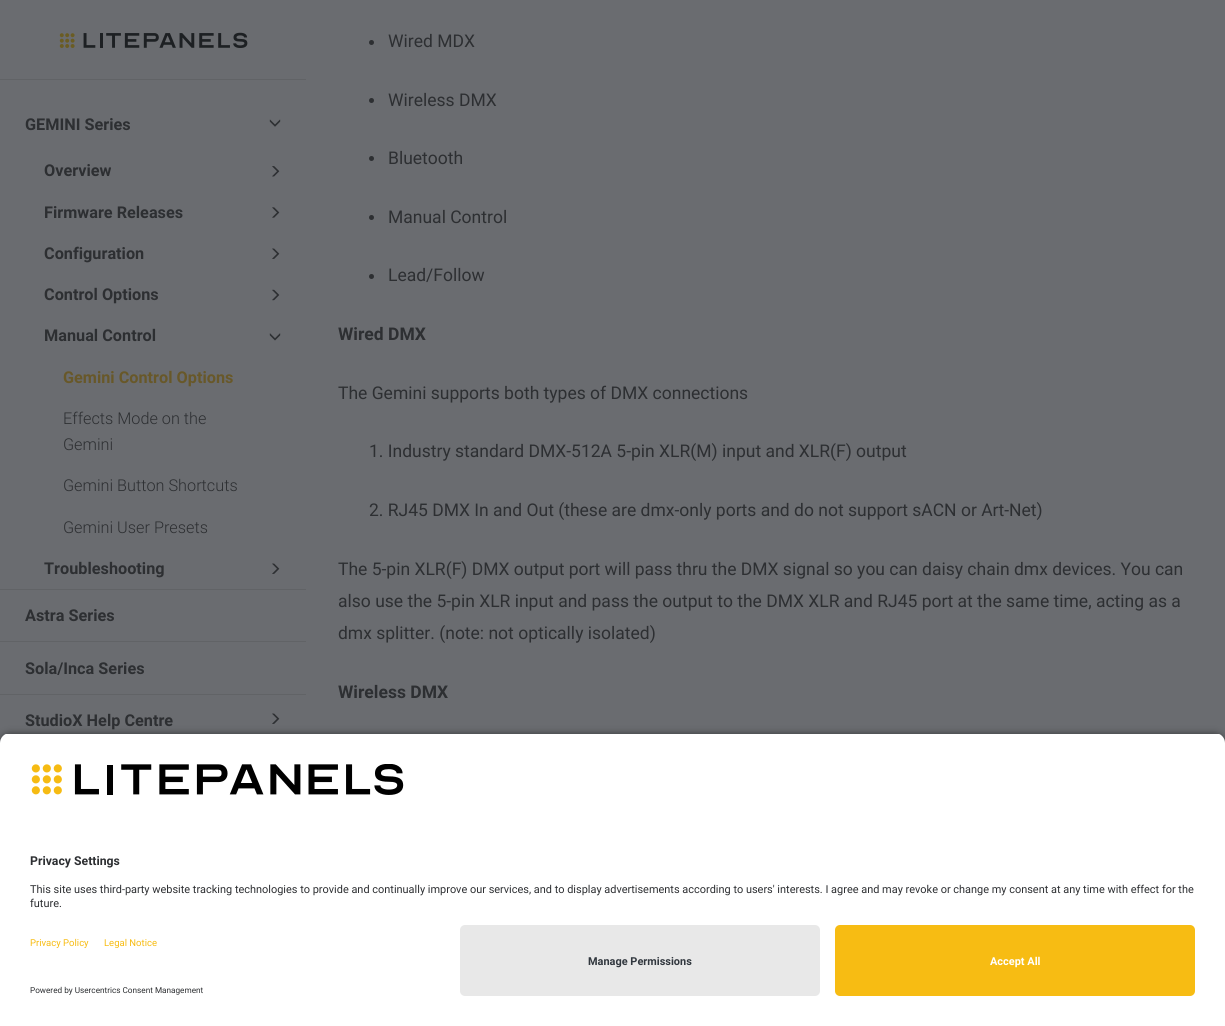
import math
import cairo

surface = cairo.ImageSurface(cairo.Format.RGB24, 1225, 1026)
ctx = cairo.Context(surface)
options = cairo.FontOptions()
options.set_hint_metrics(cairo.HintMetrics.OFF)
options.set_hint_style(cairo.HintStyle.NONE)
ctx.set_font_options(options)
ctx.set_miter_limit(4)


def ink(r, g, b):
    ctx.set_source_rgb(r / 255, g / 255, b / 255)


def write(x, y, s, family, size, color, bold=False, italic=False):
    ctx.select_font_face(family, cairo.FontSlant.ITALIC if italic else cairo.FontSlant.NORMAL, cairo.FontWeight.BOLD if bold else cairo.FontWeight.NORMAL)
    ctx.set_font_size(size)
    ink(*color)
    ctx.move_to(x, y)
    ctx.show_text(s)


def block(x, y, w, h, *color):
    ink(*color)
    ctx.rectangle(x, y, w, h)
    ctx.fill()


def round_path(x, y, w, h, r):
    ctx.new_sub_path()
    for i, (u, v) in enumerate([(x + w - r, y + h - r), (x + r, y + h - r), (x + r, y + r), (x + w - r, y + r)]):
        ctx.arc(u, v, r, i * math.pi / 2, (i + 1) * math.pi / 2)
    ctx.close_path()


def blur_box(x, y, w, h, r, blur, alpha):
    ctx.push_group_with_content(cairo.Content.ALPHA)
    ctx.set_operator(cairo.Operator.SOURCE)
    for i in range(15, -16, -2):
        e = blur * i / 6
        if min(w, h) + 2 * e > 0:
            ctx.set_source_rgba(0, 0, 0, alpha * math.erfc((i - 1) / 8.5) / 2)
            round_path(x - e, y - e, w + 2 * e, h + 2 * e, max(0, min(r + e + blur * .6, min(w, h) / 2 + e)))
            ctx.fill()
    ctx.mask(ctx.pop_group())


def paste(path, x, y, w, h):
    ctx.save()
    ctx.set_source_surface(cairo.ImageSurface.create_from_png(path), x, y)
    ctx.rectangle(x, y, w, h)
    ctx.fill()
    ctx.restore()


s1 = dict(family="Roboto", size=16.25, color=(45, 47, 50), bold=True)
s2 = dict(family="Roboto", size=16.25, color=(104, 88, 41), bold=True)
s3 = dict(family="Roboto Light", size=16.25, color=(45, 47, 50))
s4 = dict(family="Roboto", size=17.5, color=(45, 47, 50))
s5 = dict(family="Roboto", size=17.5, color=(45, 47, 50), bold=True)
s6 = dict(family="Roboto", size=12.25, color=(45, 47, 50), bold=True)
s7 = dict(family="Roboto", size=10.94, color=(45, 47, 50))
s8 = dict(family="Roboto", size=9.5, color=(247, 188, 19))
s9 = dict(family="Roboto", size=8.2, color=(45, 47, 50))
s10 = dict(family="Roboto", size=10.94, color=(49, 55, 62), bold=True)
s11 = dict(family="Roboto", size=10.94, color=(255, 255, 255), bold=True)

ink(106, 108, 112)
ctx.paint()
block(0, 79, 306, 1, 97, 99, 102)
paste("pic1.png", 59, 32, 189, 16)
block(0, 589, 306, 1, 97, 99, 102)
write(25, 130, "GEMINI Series", **s1)
paste("pic2.png", 269, 119, 12, 8)
write(44, 176, "Overview", **s1)
paste("pic3.png", 272, 166, 8, 11)
write(44, 218, "Firmware Releases", **s1)
paste("pic4.png", 272, 207, 8, 11)
write(44, 259, "Configuration", **s1)
paste("pic5.png", 272, 248, 8, 11)
write(44, 300, "Control Options", **s1)
paste("pic6.png", 272, 289, 8, 12)
write(44, 341, "Manual Control", **s1)
paste("pic7.png", 269, 333, 12, 8)
write(63, 383, "Gemini Control Options", **s2)
write(63, 424, "Effects Mode on the", **s3)
write(63, 450, "Gemini", **s3)
write(63, 491, "Gemini Button Shortcuts", **s3)
write(63, 533, "Gemini User Presets", **s3)
write(44, 574, "Troubleshooting", **s1)
paste("pic5.png", 272, 563, 8, 11)
block(0, 641, 306, 1, 97, 99, 102)
write(25, 621, "Astra Series", **s1)
block(0, 694, 306, 1, 97, 99, 102)
write(25, 674, "Sola/Inca Series", **s1)
write(25, 726, "StudioX Help Centre", **s1)
paste("pic5.png", 272, 713, 8, 11)
ctx.arc(371.5, 42.5, 2.5, 0, 2 * math.pi)
ctx.fill()
write(388, 47, "Wired MDX", **s4)
ctx.new_path()
ctx.arc(371.5, 100.5, 2.5, 0, 2 * math.pi)
ctx.fill()
write(388, 106, "Wireless DMX", **s4)
ctx.new_path()
ctx.arc(371.5, 158.5, 2.5, 0, 2 * math.pi)
ctx.fill()
write(388, 164, "Bluetooth", **s4)
ctx.new_path()
ctx.arc(371.5, 217.5, 2.5, 0, 2 * math.pi)
ctx.fill()
write(388, 223, "Manual Control", **s4)
ctx.new_path()
ctx.arc(371.5, 276.5, 2.5, 0, 2 * math.pi)
ctx.fill()
write(388, 281, "Lead/Follow", **s4)
write(338, 340, "Wired DMX", **s5)
write(338, 399, "The Gemini supports both types of DMX connections", **s4)
write(369, 457, "1. Industry standard DMX-512A 5-pin XLR(M) input and XLR(F) output", **s4)
write(369, 516, "2. RJ45 DMX In and Out (these are dmx-only ports and do not support sACN or Art-Net)", **s4)
write(338, 575, "The 5-pin XLR(F) DMX output port will pass thru the DMX signal so you can daisy chain dmx devices. You can", **s4)
write(338, 607, "also use the 5-pin XLR input and pass the output to the DMX XLR and RJ45 port at the same time, acting as a", **s4)
write(338, 639, "dmx splitter. (note: not optically isolated)", **s4)
write(338, 698, "Wireless DMX", **s5)
ink(0, 0, 0)
blur_box(0, 736, 1225, 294, 10, 4.5, 0.8)
ctx.save()
ctx.new_path()
ctx.move_to(10, 733)
ctx.line_to(1215, 733)
ctx.curve_to(1220.5, 733, 1225, 737.5, 1225, 743)
ctx.line_to(1225, 915)
ctx.line_to(0, 915)
ctx.line_to(0, 743)
ctx.curve_to(0, 737.5, 4.5, 733, 10, 733)
ctx.close_path()
ctx.clip()
block(0, 734, 1225, 181, 255, 255, 255)
ctx.restore()
paste("pic8.png", 31, 764, 373, 31)
write(30, 865, "Privacy Settings", **s6)
write(30, 893, "This site uses third-party website tracking technologies to provide and continually improve our services, and to display advertisements according to users' interests. I agree and may revoke or change my consent at any time with effect for the", **s7)
write(30, 907, "future.", **s7)
block(0, 915, 1225, 111, 255, 255, 255)
write(30, 946, "Privacy Policy", **s8)
write(104, 946, "Legal Notice", **s8)
write(30, 993, "Powered by Usercentrics Consent Management", **s9)
ink(232, 232, 232)
round_path(460, 925, 360, 71, 5)
ctx.fill()
write(588, 965, "Manage Permissions", **s10)
ink(247, 188, 19)
round_path(835, 925, 360, 71, 5)
ctx.fill()
write(990, 965, "Accept All", **s11)
surface.write_to_png("screenshot.png")
